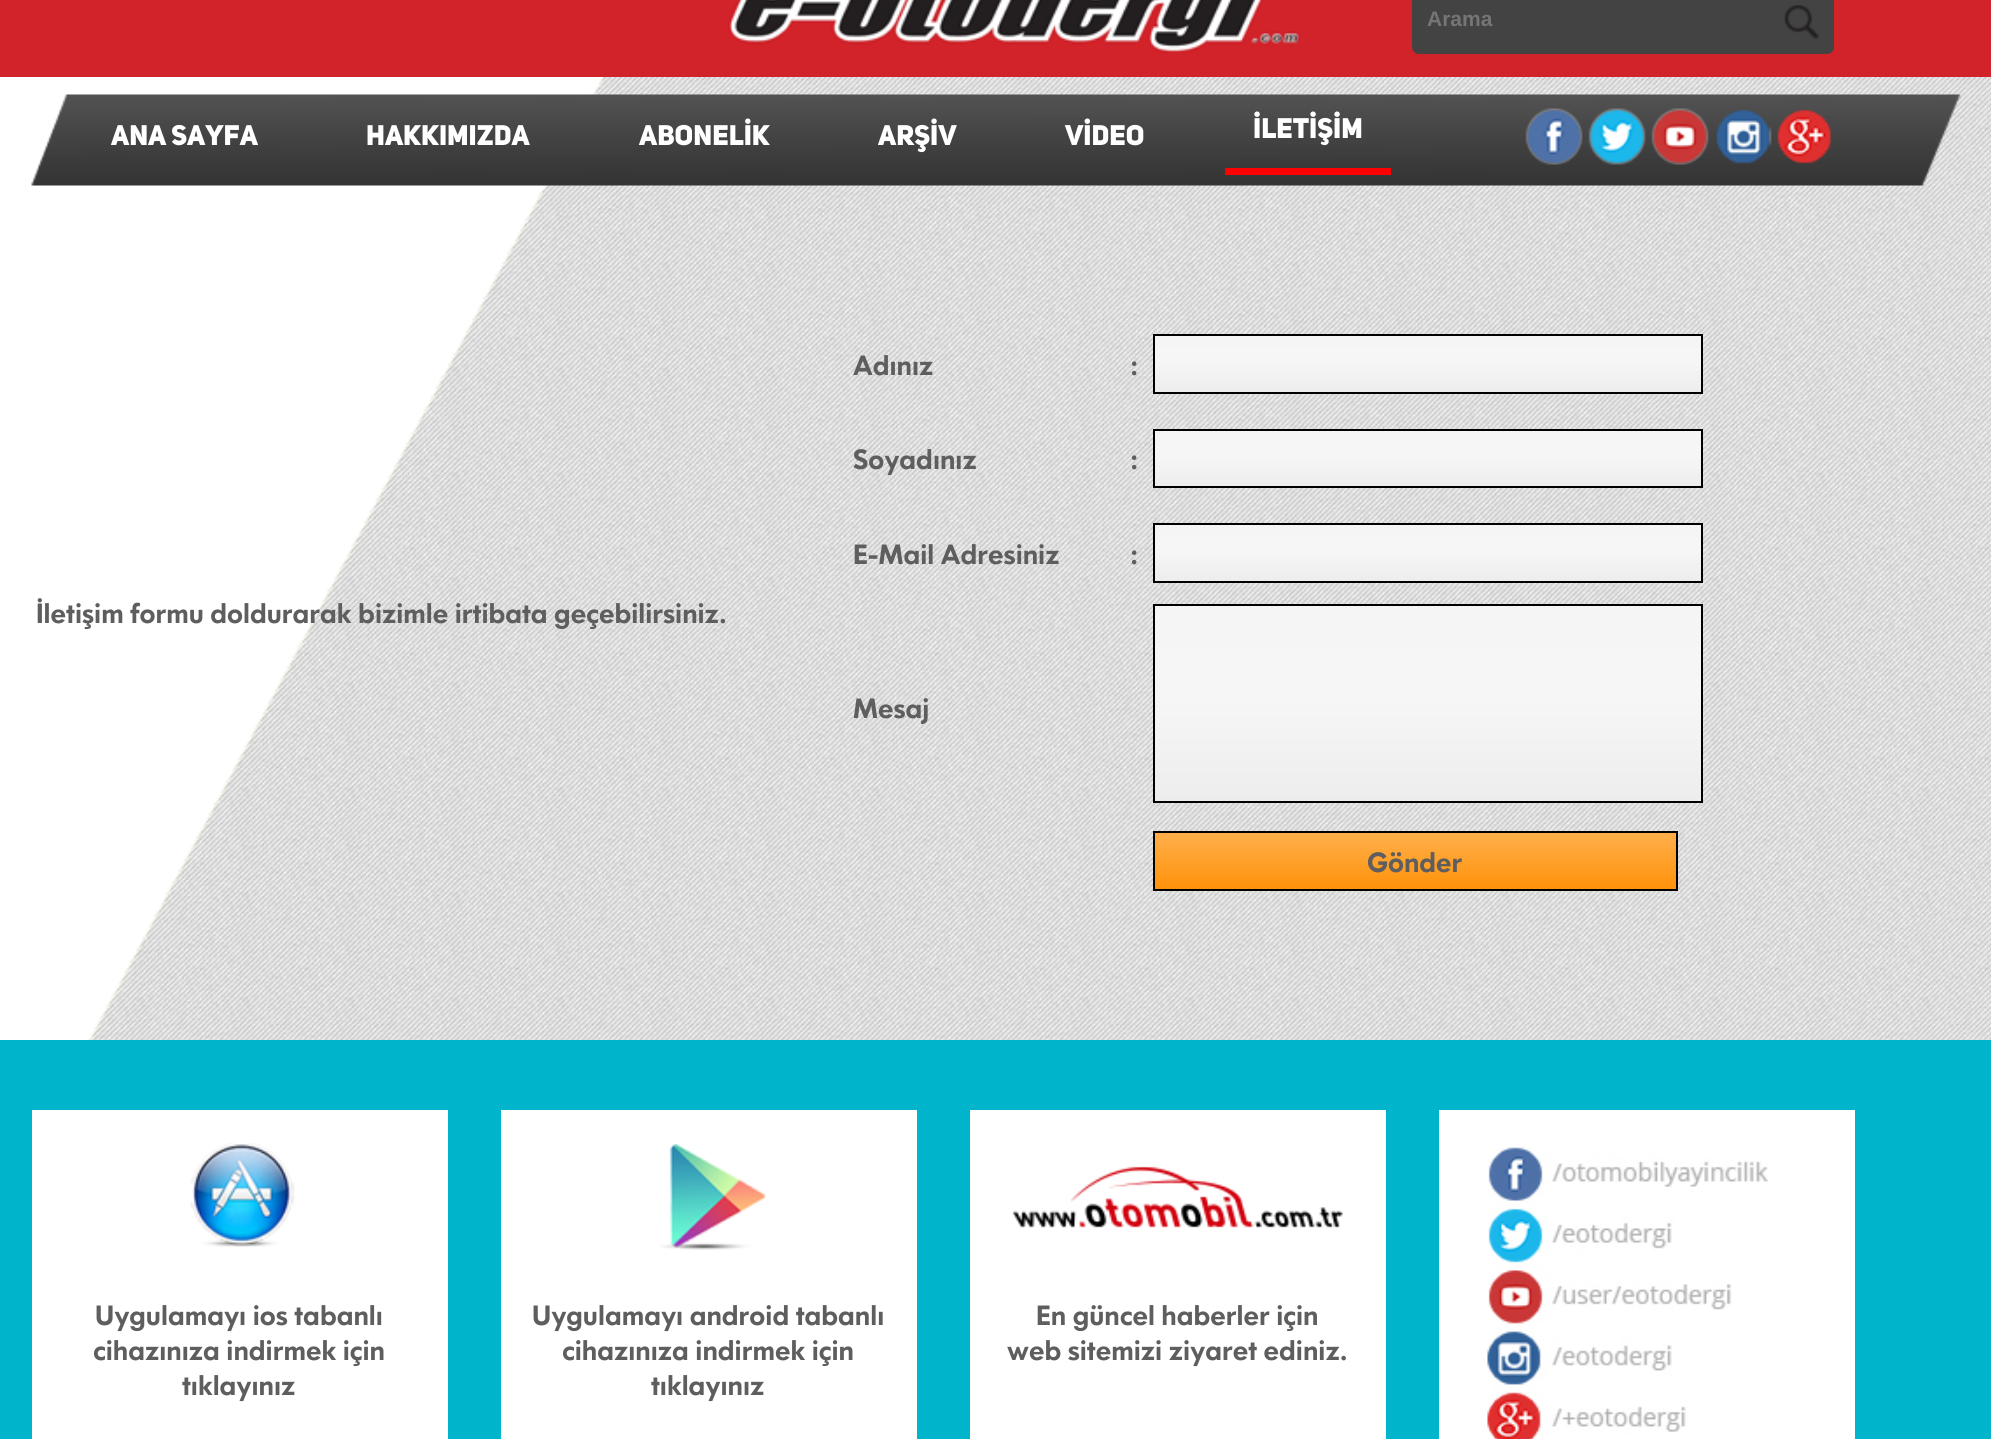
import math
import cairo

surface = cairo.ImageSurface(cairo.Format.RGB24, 1991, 1439)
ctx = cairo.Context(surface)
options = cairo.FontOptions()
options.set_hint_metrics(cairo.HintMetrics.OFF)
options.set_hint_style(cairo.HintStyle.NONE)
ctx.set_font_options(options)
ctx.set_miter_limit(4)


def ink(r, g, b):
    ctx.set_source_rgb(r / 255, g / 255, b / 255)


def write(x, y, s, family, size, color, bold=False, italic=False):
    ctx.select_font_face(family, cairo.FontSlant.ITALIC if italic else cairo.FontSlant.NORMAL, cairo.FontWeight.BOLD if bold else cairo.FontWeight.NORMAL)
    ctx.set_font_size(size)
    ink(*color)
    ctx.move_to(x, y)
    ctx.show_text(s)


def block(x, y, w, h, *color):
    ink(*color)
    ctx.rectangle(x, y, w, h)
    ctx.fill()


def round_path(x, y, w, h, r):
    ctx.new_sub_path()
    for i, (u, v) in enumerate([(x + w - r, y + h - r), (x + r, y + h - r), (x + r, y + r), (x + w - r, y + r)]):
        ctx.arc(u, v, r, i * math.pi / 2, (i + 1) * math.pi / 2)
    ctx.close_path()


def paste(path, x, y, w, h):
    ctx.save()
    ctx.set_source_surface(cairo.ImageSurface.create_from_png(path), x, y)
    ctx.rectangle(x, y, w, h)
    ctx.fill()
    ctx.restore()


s1 = dict(family="Liberation Sans", size=21, color=(117, 117, 117), bold=True)
s2 = dict(family="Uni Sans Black", size=28, color=(255, 255, 255))
s3 = dict(family="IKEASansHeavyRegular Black", size=28, color=(94, 94, 94))

ink(255, 255, 255)
ctx.paint()
paste("pic1.png", 0, 77, 1991, 963)
block(0, 0, 1991, 77, 210, 35, 42)
paste("pic2.png", 728, 0, 572, 53)
paste("pic3.png", 31, 94, 1930, 92)
ink(67, 67, 67)
round_path(1412, -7, 422, 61, 7)
ctx.fill()
write(1427, 26, "Arama", **s1)
paste("pic4.png", 1784, 5, 35, 34)
write(111, 145, "ANA SAYFA", **s2)
write(366, 145, "HAKKIMIZDA", **s2)
write(639, 145, "ABONELİK", **s2)
write(878, 145, "ARŞİV", **s2)
write(1065, 145, "VİDEO", **s2)
block(1225, 168, 166, 7, 255, 0, 0)
write(1253, 138, "İLETİŞİM", **s2)
paste("pic5.png", 1525, 108, 306, 57)
write(853, 375, "Adınız", **s3)
write(1130, 375, ":", **s3)
gradient = cairo.LinearGradient(1428, 336, 1428, 392)
gradient.add_color_stop_rgba(0, 0.961, 0.961, 0.961, 1)
gradient.add_color_stop_rgba(0.47, 0.965, 0.965, 0.965, 1)
gradient.add_color_stop_rgba(1, 0.929, 0.929, 0.929, 1)
ctx.set_source(gradient)
ctx.rectangle(1155, 336, 546, 56)
ctx.fill()
ctx.rectangle(1154, 335, 548, 58)
ink(0, 0, 0)
ctx.stroke()
write(36, 623, "İletişim formu doldurarak bizimle irtibata geçebilirsiniz.", **s3)
write(853, 469, "Soyadınız", **s3)
write(1130, 469, ":", **s3)
gradient = cairo.LinearGradient(1428, 430, 1428, 487)
gradient.add_color_stop_rgba(0, 0.961, 0.961, 0.961, 1)
gradient.add_color_stop_rgba(0.47, 0.965, 0.965, 0.965, 1)
gradient.add_color_stop_rgba(1, 0.929, 0.929, 0.929, 1)
ctx.set_source(gradient)
ctx.rectangle(1155, 431, 546, 55)
ctx.fill()
ctx.rectangle(1154, 430, 548, 57)
ink(0, 0, 0)
ctx.stroke()
write(853, 564, "E-Mail Adresiniz", **s3)
write(1130, 564, ":", **s3)
gradient = cairo.LinearGradient(1428, 525, 1428, 581)
gradient.add_color_stop_rgba(0, 0.961, 0.961, 0.961, 1)
gradient.add_color_stop_rgba(0.47, 0.965, 0.965, 0.965, 1)
gradient.add_color_stop_rgba(1, 0.929, 0.929, 0.929, 1)
ctx.set_source(gradient)
ctx.rectangle(1155, 525, 546, 56)
ctx.fill()
ctx.rectangle(1154, 524, 548, 58)
ink(0, 0, 0)
ctx.stroke()
write(853, 718, "Mesaj", **s3)
gradient = cairo.LinearGradient(1428, 606, 1428, 802)
gradient.add_color_stop_rgba(0, 0.961, 0.961, 0.961, 1)
gradient.add_color_stop_rgba(0.47, 0.965, 0.965, 0.965, 1)
gradient.add_color_stop_rgba(1, 0.929, 0.929, 0.929, 1)
ctx.set_source(gradient)
ctx.rectangle(1155, 606, 546, 195)
ctx.fill()
ctx.rectangle(1154, 605, 548, 197)
ink(0, 0, 0)
ctx.stroke()
gradient = cairo.LinearGradient(1416, 833, 1416, 889)
gradient.add_color_stop_rgba(0, 1, 0.686, 0.294, 1)
gradient.add_color_stop_rgba(1, 1, 0.573, 0.039, 1)
ctx.set_source(gradient)
ctx.rectangle(1155, 833, 521, 56)
ctx.fill()
ctx.rectangle(1154, 832, 523, 58)
ink(0, 0, 0)
ctx.stroke()
write(1367, 872, "Gönder", **s3)
block(0, 1040, 1991, 399, 0, 180, 203)
block(32, 1110, 416, 329, 255, 255, 255)
paste("pic6.png", 190, 1143, 105, 104)
write(95, 1325, "Uygulamayı ios tabanlı", **s3)
write(93, 1360, "cihazınıza indirmek için", **s3)
write(182, 1395, "tıklayınız", **s3)
block(501, 1110, 416, 329, 255, 255, 255)
paste("pic7.png", 660, 1144, 106, 106)
write(532, 1325, "Uygulamayı android tabanlı", **s3)
write(562, 1360, "cihazınıza indirmek için", **s3)
write(651, 1395, "tıklayınız", **s3)
block(970, 1110, 416, 329, 255, 255, 255)
paste("pic8.png", 1012, 1166, 331, 62)
write(1036, 1325, "En güncel haberler için", **s3)
write(1007, 1360, "web sitemizi ziyaret ediniz.", **s3)
block(1439, 1110, 416, 329, 255, 255, 255)
paste("pic9.png", 1486, 1147, 282, 292)
surface.write_to_png("screenshot.png")
